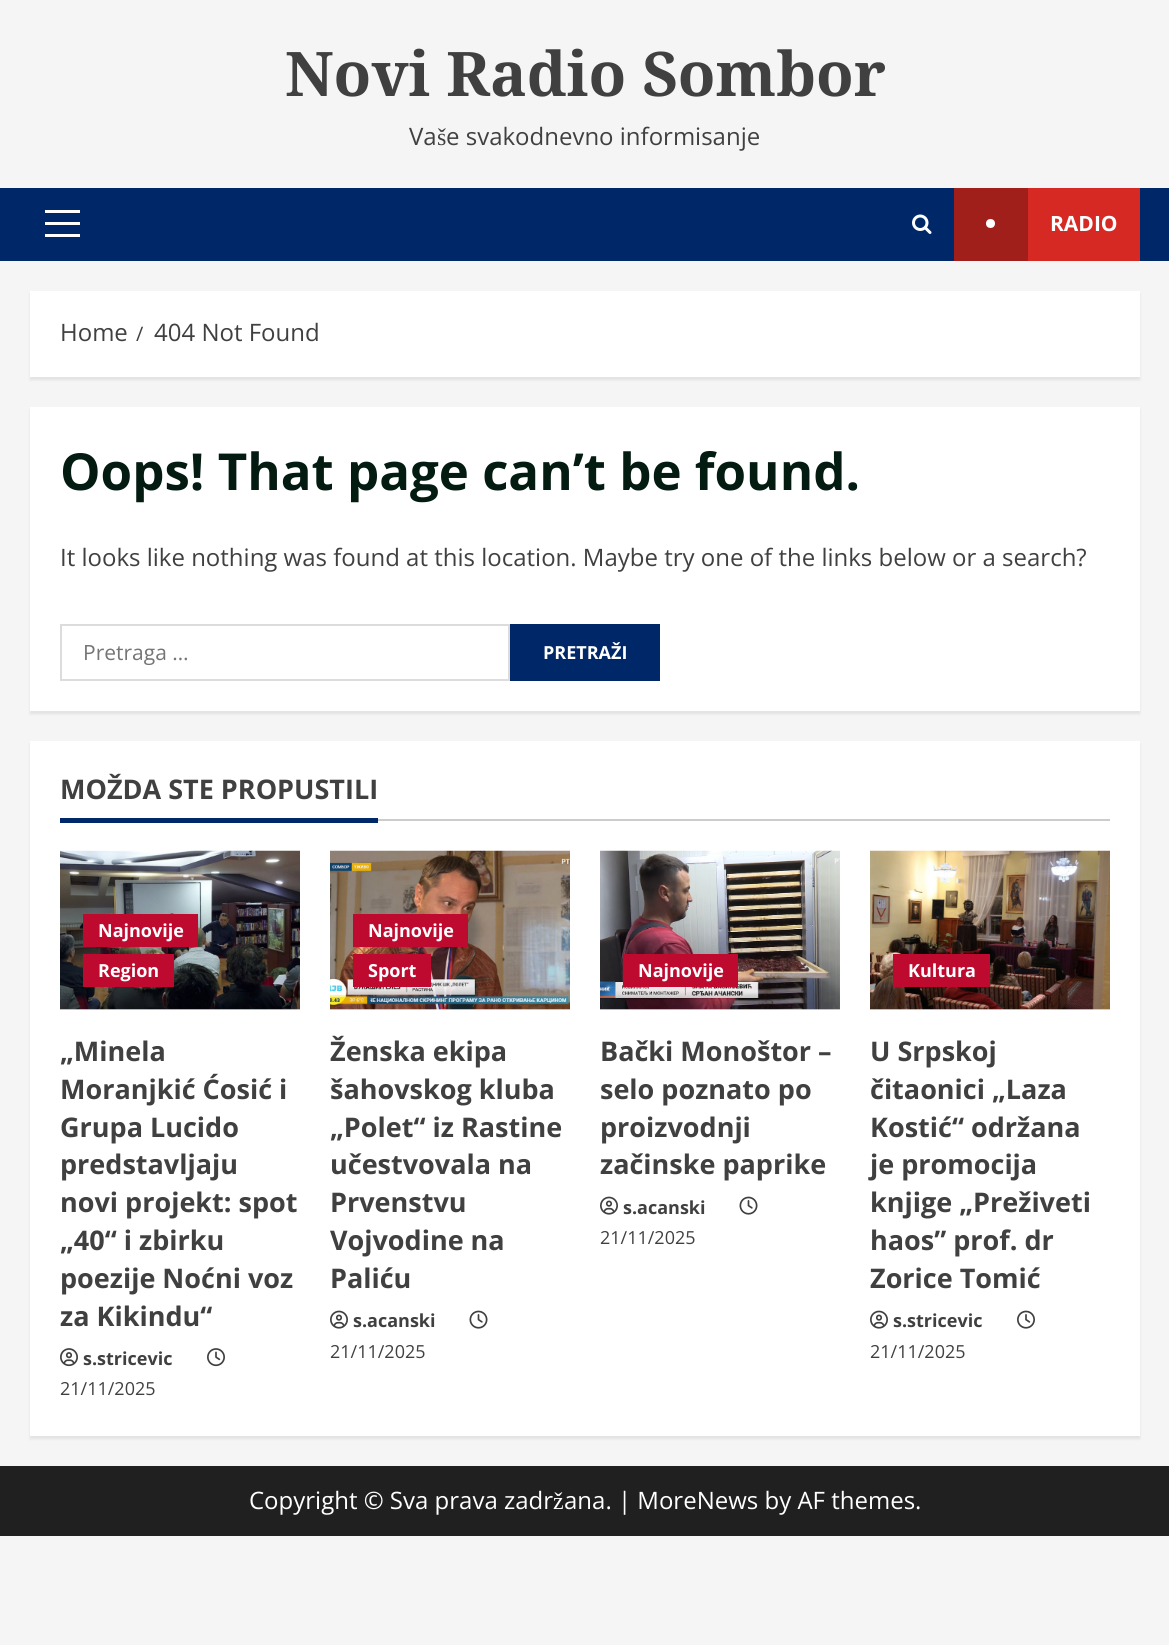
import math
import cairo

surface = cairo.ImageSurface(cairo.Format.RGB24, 1169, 1645)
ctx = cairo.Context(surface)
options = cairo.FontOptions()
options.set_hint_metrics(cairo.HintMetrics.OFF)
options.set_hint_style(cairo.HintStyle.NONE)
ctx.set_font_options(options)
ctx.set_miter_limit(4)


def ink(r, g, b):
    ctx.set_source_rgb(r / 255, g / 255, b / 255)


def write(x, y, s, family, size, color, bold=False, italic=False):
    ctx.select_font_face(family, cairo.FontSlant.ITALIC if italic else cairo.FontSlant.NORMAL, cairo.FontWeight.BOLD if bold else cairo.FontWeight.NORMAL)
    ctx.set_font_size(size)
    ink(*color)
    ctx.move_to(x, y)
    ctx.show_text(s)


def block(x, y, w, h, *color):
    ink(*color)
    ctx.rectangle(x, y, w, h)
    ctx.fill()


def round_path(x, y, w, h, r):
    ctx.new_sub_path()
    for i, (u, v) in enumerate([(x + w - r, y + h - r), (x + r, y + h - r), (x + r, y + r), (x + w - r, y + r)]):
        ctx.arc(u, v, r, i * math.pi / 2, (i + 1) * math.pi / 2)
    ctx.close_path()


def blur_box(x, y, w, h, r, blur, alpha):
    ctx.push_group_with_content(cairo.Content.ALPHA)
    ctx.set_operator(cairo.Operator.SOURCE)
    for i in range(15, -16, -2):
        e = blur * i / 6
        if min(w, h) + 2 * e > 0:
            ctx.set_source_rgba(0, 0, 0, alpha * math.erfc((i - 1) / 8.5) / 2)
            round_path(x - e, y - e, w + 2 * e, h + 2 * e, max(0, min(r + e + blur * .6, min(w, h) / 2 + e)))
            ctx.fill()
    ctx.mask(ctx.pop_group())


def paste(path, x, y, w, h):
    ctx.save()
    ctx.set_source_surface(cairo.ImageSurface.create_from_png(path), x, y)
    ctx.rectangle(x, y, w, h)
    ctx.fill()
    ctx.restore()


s1 = dict(family="Noto Serif", size=61.5, color=(64, 64, 64), bold=True)
s2 = dict(family="Open Sans", size=24, color=(64, 64, 64))
s3 = dict(family="Liberation Serif", size=24, color=(64, 64, 64))
s4 = dict(family="Open Sans", size=21, color=(255, 255, 255), bold=True)
s5 = dict(family="Open Sans", size=20, color=(64, 64, 64))
s6 = dict(family="Open Sans", size=51, color=(3, 27, 17), bold=True)
s7 = dict(family="Open Sans", size=21, color=(117, 117, 117))
s8 = dict(family="Open Sans", size=18, color=(255, 255, 255), bold=True)
s9 = dict(family="Open Sans", size=27, color=(64, 64, 64), bold=True)
s10 = dict(family="Open Sans", size=18, color=(64, 64, 64), bold=True)
s11 = dict(family="Open Sans", size=18, color=(64, 64, 64))
s12 = dict(family="Open Sans", size=24, color=(255, 255, 255))
s13 = dict(family="Liberation Serif", size=24, color=(255, 255, 255))

ink(245, 245, 245)
ctx.paint()
write(285, 96, "Novi Radio Sombor", **s1)
write(409, 145, "Va", **s2)
write(437, 145, "š", **s3)
write(446, 145, "e svakodnevno informisanje", **s2)
block(0, 188, 1169, 73, 0, 40, 104)
block(45, 222, 35, 3, 255, 255, 255)
block(45, 210, 35, 3, 255, 255, 255)
block(45, 234, 35, 3, 255, 255, 255)
paste("pic1.png", 912, 214, 20, 20)
block(1028, 188, 112, 73, 215, 41, 36)
block(954, 188, 74, 73, 161, 31, 27)
ink(255, 255, 255)
ctx.arc(990.5, 223.5, 4.5, 0, 2 * math.pi)
ctx.fill()
write(1050, 231, "RADIO", **s4)
ink(0, 0, 0)
blur_box(30, 294, 1110, 86, 0, 1.5, 0.08)
block(30, 291, 1110, 86, 255, 255, 255)
write(60, 341, "Home", **s2)
write(136, 341, "/", **s5)
write(154, 341, "404 Not Found", **s2)
ink(0, 0, 0)
blur_box(30, 410, 1110, 304, 0, 1.5, 0.08)
block(30, 407, 1110, 304, 255, 255, 255)
write(60, 490, "Oops! That page can’t be found.", **s6)
write(60, 566, "It looks like nothing was found at this location. Maybe try one of the links below or a search?", **s2)
ctx.rectangle(61, 625, 448, 55)
ink(220, 220, 220)
ctx.stroke()
write(83, 660, "Pretraga …", **s7)
block(510, 624, 150, 57, 0, 40, 104)
write(543, 659, "PRETRAŽI", **s8)
ink(0, 0, 0)
blur_box(30, 744, 1110, 695, 0, 1.5, 0.08)
block(30, 741, 1110, 695, 255, 255, 255)
block(378, 819, 732, 2, 204, 204, 204)
write(60, 799, "MOŽDA STE PROPUSTILI", **s9)
block(60, 818, 318, 5, 0, 40, 104)
block(60, 1009, 240, 1, 236, 236, 236)
paste("pic2.png", 60, 850, 240, 160)
block(83, 914, 115, 33, 191, 10, 48)
write(98, 937, "Najnovije", **s8)
block(83, 954, 91, 33, 191, 10, 48)
write(98, 977, "Region", **s8)
write(60, 1061, "„Minela", **s9)
write(60, 1099, "Moranjkić Ćosić i", **s9)
write(60, 1137, "Grupa Lucido", **s9)
write(60, 1174, "predstavljaju", **s9)
write(60, 1212, "novi projekt: spot", **s9)
write(60, 1250, "„40“ i zbirku", **s9)
write(60, 1288, "poezije Noćni voz", **s9)
write(60, 1326, "za Kikindu“", **s9)
paste("pic3.png", 60, 1348, 18, 19)
write(83, 1365, "s.stricevic", **s10)
paste("pic4.png", 207, 1348, 18, 19)
write(60, 1395, "21/11/2025", **s11)
block(330, 1009, 240, 1, 236, 236, 236)
paste("pic5.png", 330, 850, 240, 160)
block(353, 914, 115, 33, 191, 10, 48)
write(368, 937, "Najnovije", **s8)
block(353, 954, 78, 33, 191, 10, 48)
write(368, 977, "Sport", **s8)
write(330, 1061, "Ženska ekipa", **s9)
write(330, 1099, "šahovskog kluba", **s9)
write(330, 1137, "„Polet“ iz Rastine", **s9)
write(330, 1174, "učestvovala na", **s9)
write(330, 1212, "Prvenstvu", **s9)
write(330, 1250, "Vojvodine na", **s9)
write(330, 1288, "Paliću", **s9)
paste("pic6.png", 330, 1310, 18, 19)
write(353, 1327, "s.acanski", **s10)
paste("pic7.png", 469, 1310, 19, 19)
write(330, 1358, "21/11/2025", **s11)
block(600, 1009, 240, 1, 236, 236, 236)
paste("pic8.png", 600, 850, 240, 160)
block(623, 954, 115, 33, 191, 10, 48)
write(638, 977, "Najnovije", **s8)
write(600, 1061, "Bački Monoštor –", **s9)
write(600, 1099, "selo poznato po", **s9)
write(600, 1137, "proizvodnji", **s9)
write(600, 1174, "začinske paprike", **s9)
paste("pic6.png", 600, 1196, 18, 19)
write(623, 1214, "s.acanski", **s10)
paste("pic7.png", 739, 1196, 19, 19)
write(600, 1244, "21/11/2025", **s11)
block(870, 1009, 240, 1, 236, 236, 236)
paste("pic9.png", 870, 850, 240, 160)
block(893, 954, 97, 33, 191, 10, 48)
write(908, 977, "Kultura", **s8)
write(870, 1061, "U Srpskoj", **s9)
write(870, 1099, "čitaonici „Laza", **s9)
write(870, 1137, "Kostić“ održana", **s9)
write(870, 1174, "je promocija", **s9)
write(870, 1212, "knjige „Preživeti", **s9)
write(870, 1250, "haos” prof. dr", **s9)
write(870, 1288, "Zorice Tomić", **s9)
paste("pic6.png", 870, 1310, 18, 19)
write(893, 1327, "s.stricevic", **s10)
paste("pic10.png", 1017, 1310, 18, 19)
write(870, 1358, "21/11/2025", **s11)
block(0, 1466, 1169, 70, 32, 32, 32)
write(249, 1509, "Copyright © Sva prava zadr", **s12)
write(553, 1509, "ž", **s13)
write(564, 1509, "ana. | MoreNews by AF themes.", **s12)
surface.write_to_png("screenshot.png")
